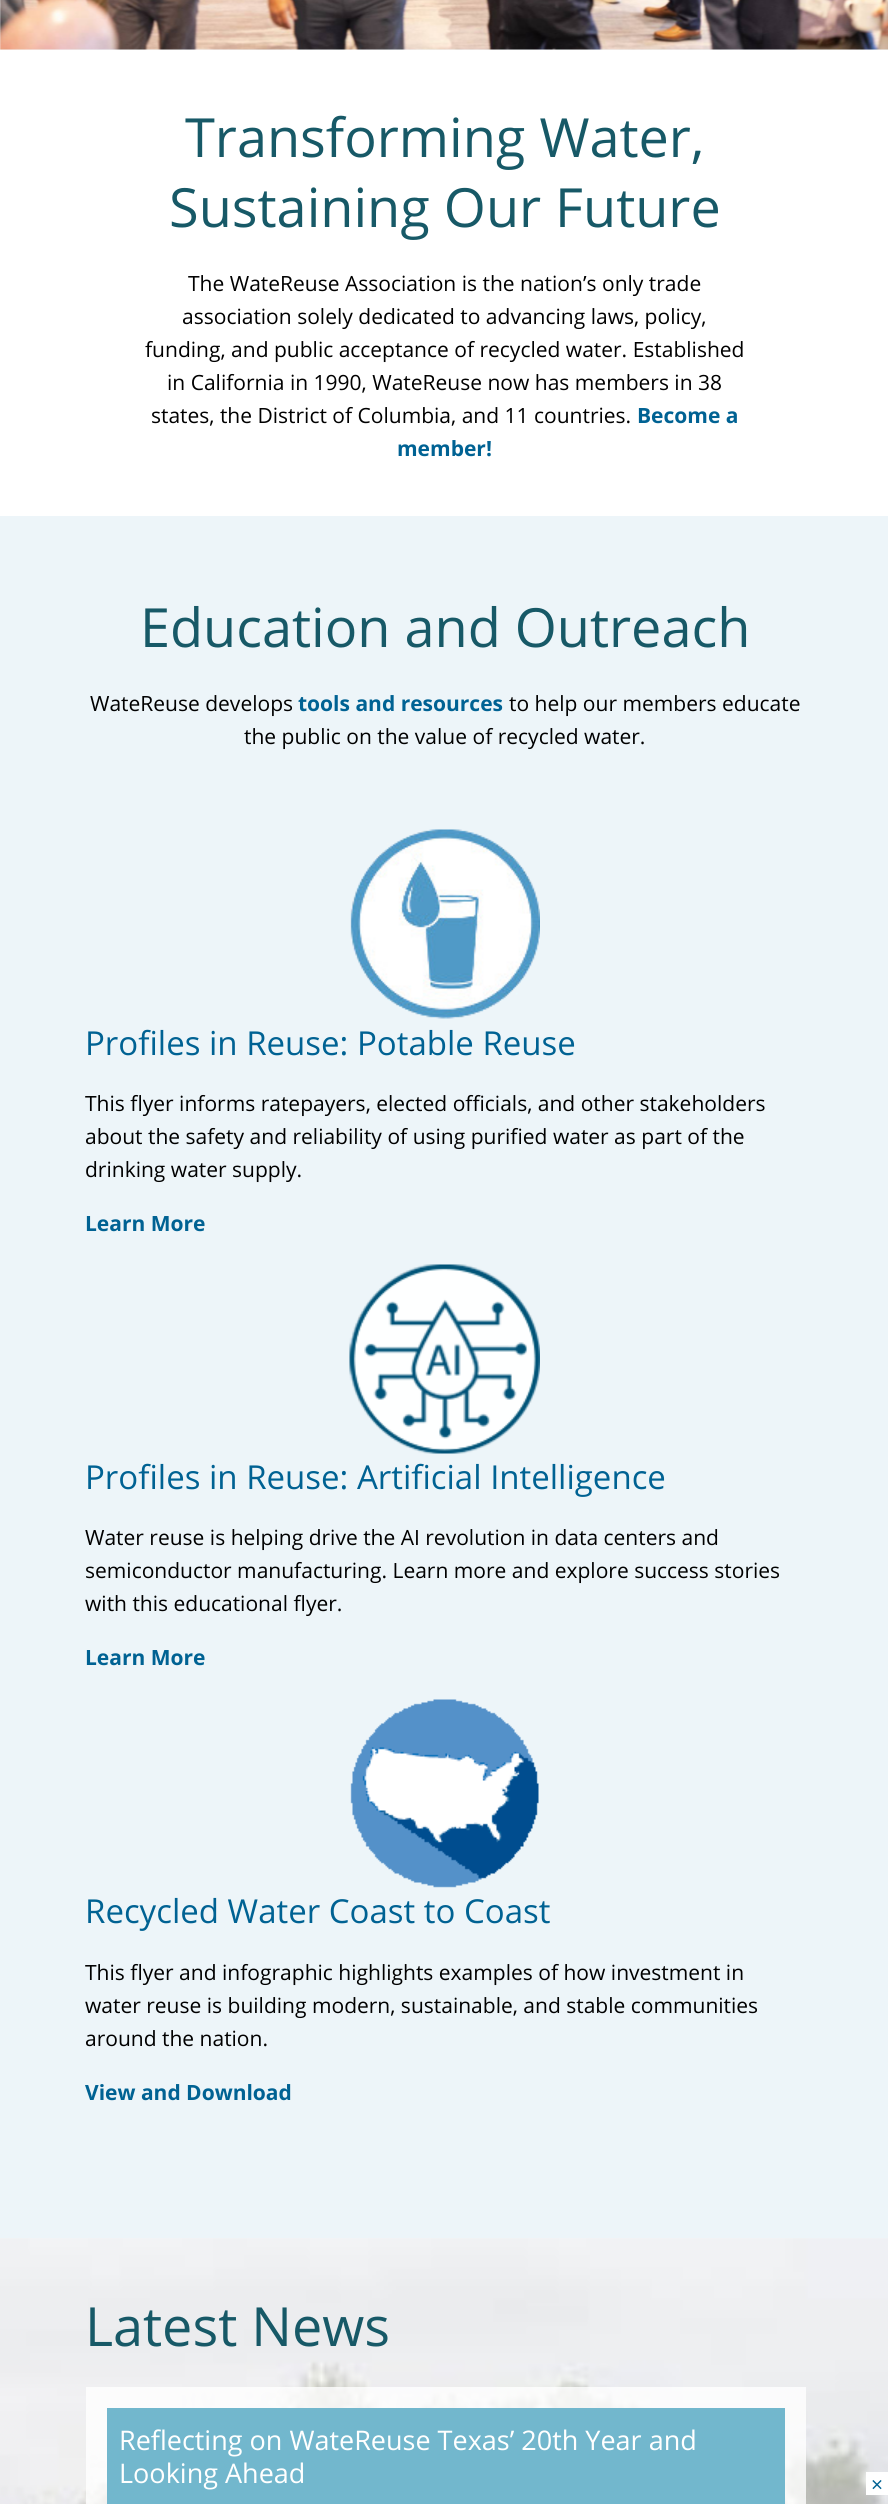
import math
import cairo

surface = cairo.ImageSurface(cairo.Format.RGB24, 888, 2504)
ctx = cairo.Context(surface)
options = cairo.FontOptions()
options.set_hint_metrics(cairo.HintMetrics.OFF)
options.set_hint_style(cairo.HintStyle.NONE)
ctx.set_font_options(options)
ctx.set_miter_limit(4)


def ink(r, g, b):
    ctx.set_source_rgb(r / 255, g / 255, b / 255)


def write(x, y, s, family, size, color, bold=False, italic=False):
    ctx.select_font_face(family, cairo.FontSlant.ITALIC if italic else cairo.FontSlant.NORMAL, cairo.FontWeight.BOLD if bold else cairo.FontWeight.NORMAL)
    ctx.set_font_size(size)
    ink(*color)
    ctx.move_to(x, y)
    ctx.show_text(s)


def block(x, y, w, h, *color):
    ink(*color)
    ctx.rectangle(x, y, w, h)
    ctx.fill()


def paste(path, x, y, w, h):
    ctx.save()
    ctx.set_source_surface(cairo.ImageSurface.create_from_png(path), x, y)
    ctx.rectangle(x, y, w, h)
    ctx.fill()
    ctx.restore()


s1 = dict(family="Open Sans", size=54, color=(23, 89, 103))
s2 = dict(family="Open Sans", size=21, color=(0, 0, 0))
s3 = dict(family="Open Sans", size=21, color=(0, 98, 147), bold=True)
s4 = dict(family="Open Sans", size=33, color=(0, 98, 147))
s5 = dict(family="Open Sans", size=27, color=(255, 255, 255))
s6 = dict(family="Open Sans", size=21, color=(0, 98, 147))

ink(242, 247, 249)
ctx.paint()
paste("pic1.png", 0, 0, 888, 50)
block(0, 50, 888, 466, 255, 255, 255)
write(185, 157, "Transforming Water,", **s1)
write(169, 227, "Sustaining Our Future", **s1)
write(188, 291, "The WateReuse Association is the nation’s only trade", **s2)
write(182, 324, "association solely dedicated to advancing laws, policy,", **s2)
write(145, 357, "funding, and public acceptance of recycled water. Established", **s2)
write(167, 390, "in California in 1990, WateReuse now has members in 38", **s2)
write(151, 423, "states, the District of Columbia, and 11 countries.", **s2)
write(637, 423, "Become a", **s3)
write(397, 456, "member!", **s3)
block(0, 516, 888, 1722, 237, 245, 249)
write(140, 647, "Education and Outreach", **s1)
write(90, 711, "WateReuse develops", **s2)
write(298, 711, "tools and resources", **s3)
write(509, 711, "to help our members educate", **s2)
write(244, 744, "the public on the value of recycled water.", **s2)
paste("pic2.png", 350, 829, 190, 190)
write(85, 1055, "Profiles in Reuse: Potable Reuse", **s4)
write(85, 1111, "This flyer informs ratepayers, elected officials, and other stakeholders", **s2)
write(85, 1144, "about the safety and reliability of using purified water as part of the", **s2)
write(85, 1177, "drinking water supply.", **s2)
write(85, 1231, "Learn More", **s3)
paste("pic3.png", 349, 1264, 191, 190)
write(85, 1489, "Profiles in Reuse: Artificial Intelligence", **s4)
write(85, 1545, "Water reuse is helping drive the AI revolution in data centers and", **s2)
write(85, 1578, "semiconductor manufacturing. Learn more and explore success stories", **s2)
write(85, 1611, "with this educational flyer.", **s2)
write(85, 1665, "Learn More", **s3)
paste("pic4.png", 350, 1699, 189, 189)
write(85, 1923, "Recycled Water Coast to Coast", **s4)
write(85, 1980, "This flyer and infographic highlights examples of how investment in", **s2)
write(85, 2013, "water reuse is building modern, sustainable, and stable communities", **s2)
write(85, 2046, "around the nation.", **s2)
write(85, 2100, "View and Download", **s3)
paste("pic5.png", 0, 2238, 888, 266)
write(85, 2346, "Latest News", **s1)
ctx.set_source_rgba(1, 1, 1, 0.8)
ctx.rectangle(86, 2387, 720, 117)
ctx.fill()
block(107, 2408, 678, 96, 114, 183, 205)
write(119, 2450, "Reflecting on WateReuse Texas’ 20th Year and", **s5)
write(119, 2483, "Looking Ahead", **s5)
block(866, 2472, 22, 23, 255, 255, 255)
write(871, 2492, "×", **s6)
surface.write_to_png("screenshot.png")
